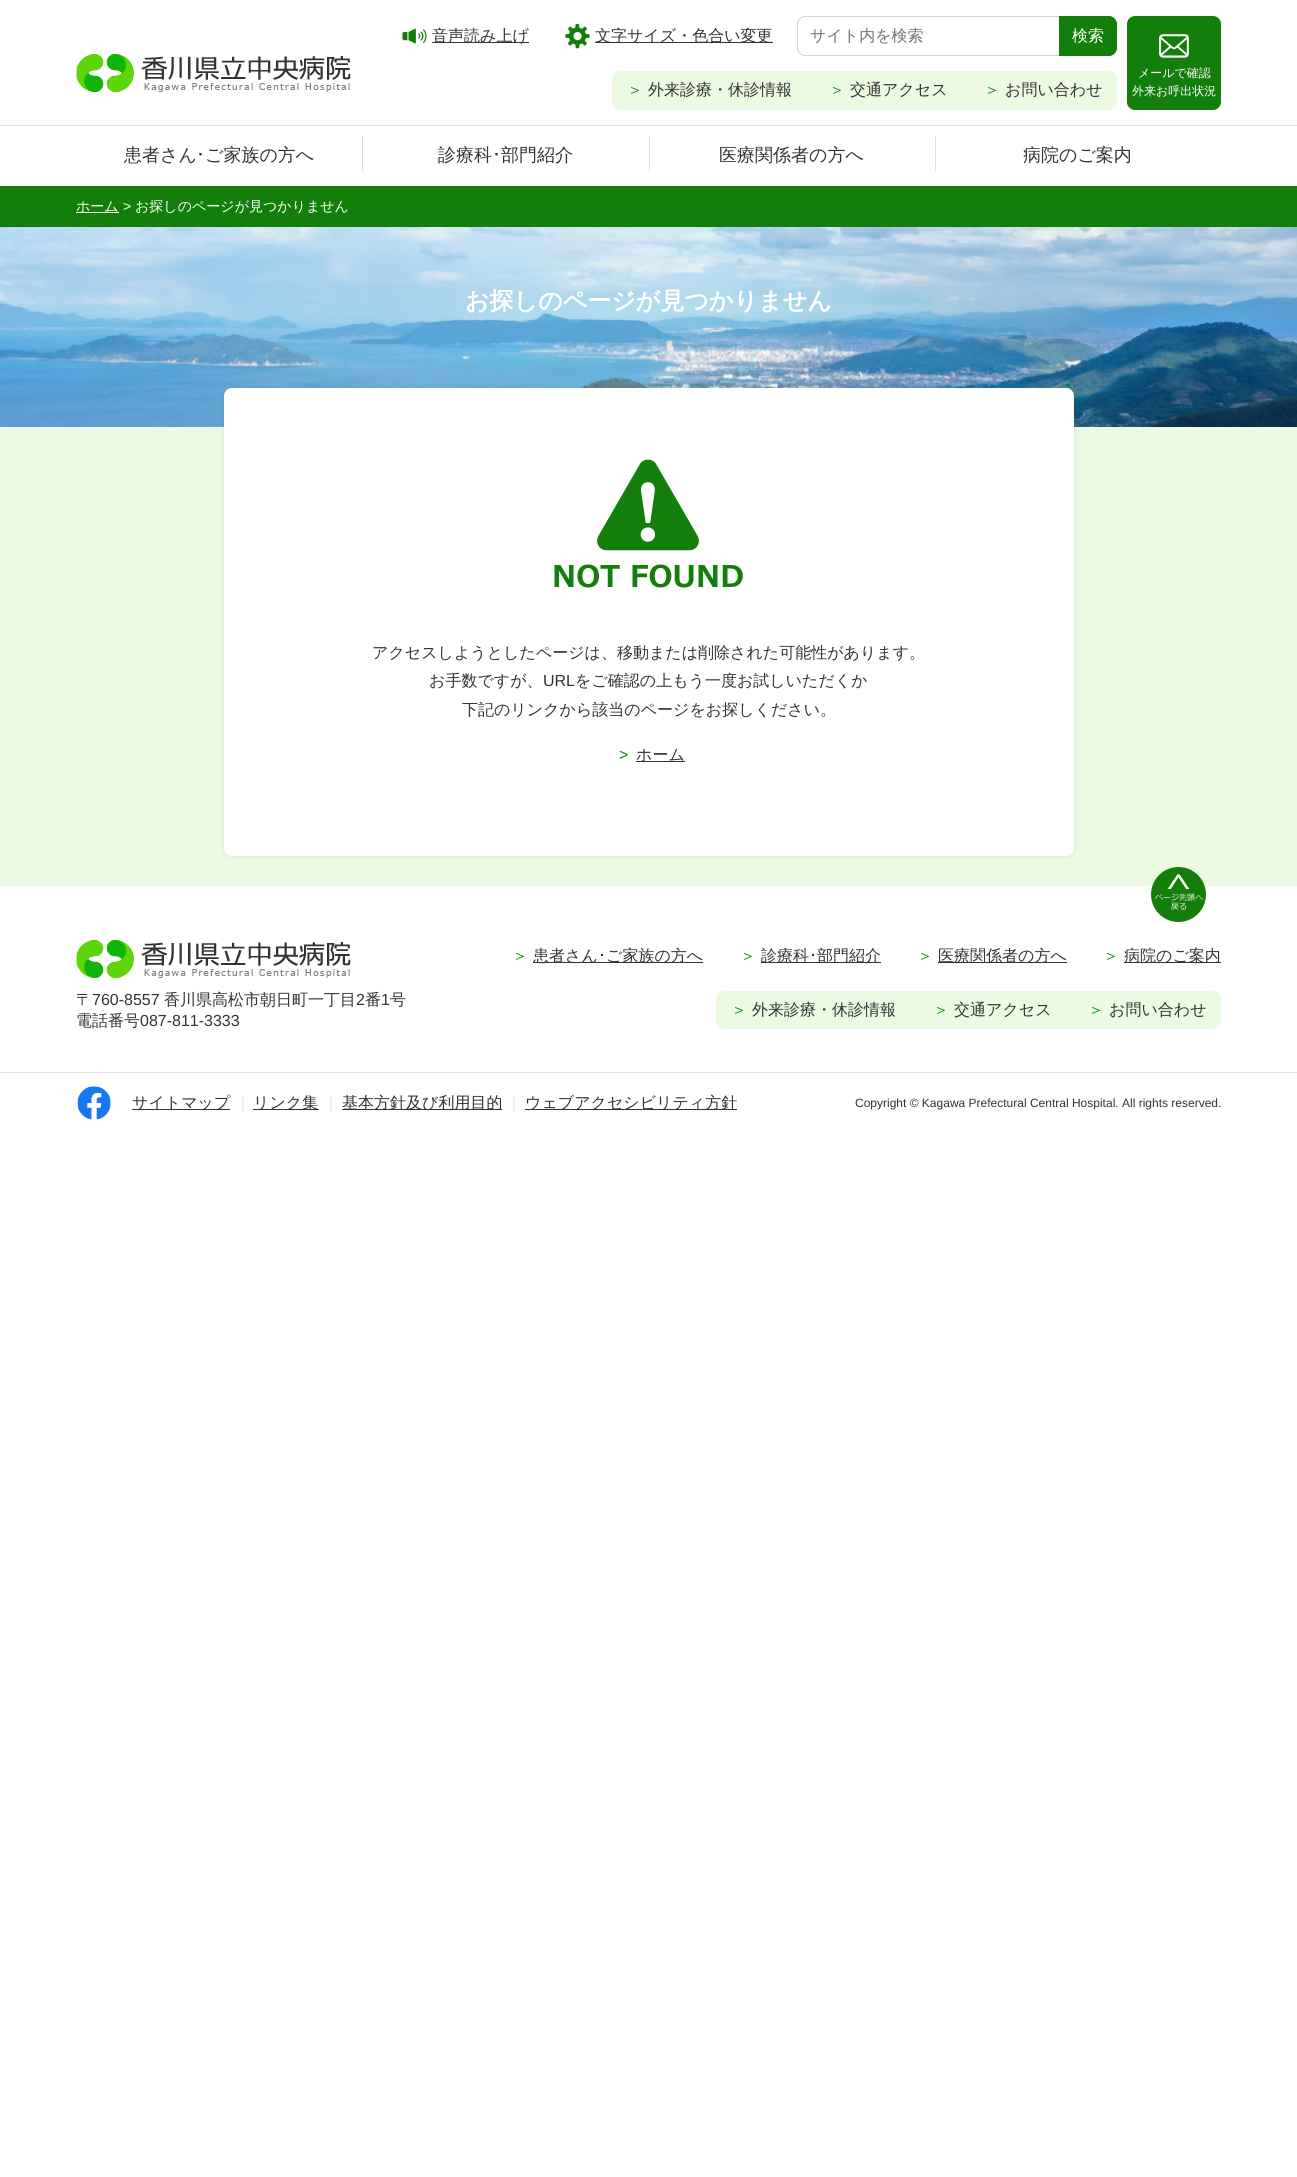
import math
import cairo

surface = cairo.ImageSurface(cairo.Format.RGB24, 1297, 2177)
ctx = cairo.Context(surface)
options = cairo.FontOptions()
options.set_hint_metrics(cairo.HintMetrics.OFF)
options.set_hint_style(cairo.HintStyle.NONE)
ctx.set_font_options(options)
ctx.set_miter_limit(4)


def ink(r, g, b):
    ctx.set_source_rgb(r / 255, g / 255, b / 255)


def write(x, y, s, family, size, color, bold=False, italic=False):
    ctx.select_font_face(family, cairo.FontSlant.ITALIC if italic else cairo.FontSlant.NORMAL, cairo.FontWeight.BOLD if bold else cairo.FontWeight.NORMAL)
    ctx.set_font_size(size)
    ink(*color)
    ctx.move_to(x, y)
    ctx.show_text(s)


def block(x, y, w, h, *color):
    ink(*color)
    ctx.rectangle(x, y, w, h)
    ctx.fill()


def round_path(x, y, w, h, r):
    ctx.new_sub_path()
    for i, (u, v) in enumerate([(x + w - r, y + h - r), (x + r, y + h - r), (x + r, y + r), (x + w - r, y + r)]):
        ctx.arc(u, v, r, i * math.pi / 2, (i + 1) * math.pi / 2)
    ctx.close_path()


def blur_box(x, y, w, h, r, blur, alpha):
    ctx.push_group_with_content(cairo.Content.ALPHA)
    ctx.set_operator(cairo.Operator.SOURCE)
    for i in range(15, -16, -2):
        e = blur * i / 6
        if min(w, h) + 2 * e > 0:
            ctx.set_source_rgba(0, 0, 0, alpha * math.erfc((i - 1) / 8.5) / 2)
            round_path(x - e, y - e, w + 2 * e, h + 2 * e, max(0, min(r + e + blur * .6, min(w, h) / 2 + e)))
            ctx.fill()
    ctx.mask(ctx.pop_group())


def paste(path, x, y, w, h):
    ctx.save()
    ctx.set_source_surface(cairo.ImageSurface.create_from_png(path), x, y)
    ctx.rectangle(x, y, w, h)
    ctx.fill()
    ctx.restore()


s1 = dict(family="WenQuanYi Zen Hei Medium", size=16, color=(51, 51, 51))
s2 = dict(family="WenQuanYi Zen Hei Medium", size=16, color=(108, 117, 125))
s3 = dict(family="WenQuanYi Zen Hei Medium", size=16, color=(255, 255, 255))
s4 = dict(family="WenQuanYi Zen Hei Medium", size=16, color=(19, 127, 10))
s5 = dict(family="WenQuanYi Zen Hei Medium", size=12, color=(255, 255, 255))
s6 = dict(family="WenQuanYi Zen Hei Medium", size=18, color=(51, 51, 51))
s7 = dict(family="IPAPGothic", size=18, color=(51, 51, 51))
s8 = dict(family="WenQuanYi Zen Hei Medium", size=14, color=(255, 255, 255))
s9 = dict(family="Liberation Sans", size=14, color=(255, 255, 255))
s10 = dict(family="WenQuanYi Zen Hei", size=24, color=(255, 255, 255), bold=True)
s11 = dict(family="Liberation Sans", size=16, color=(51, 51, 51))
s12 = dict(family="Liberation Sans", size=16, color=(19, 127, 10))
s13 = dict(family="IPAPGothic", size=16, color=(51, 51, 51))
s14 = dict(family="WenQuanYi Zen Hei Medium", size=16, color=(221, 221, 221))
s15 = dict(family="Liberation Sans", size=12, color=(51, 51, 51))

ink(255, 255, 255)
ctx.paint()
paste("pic1.png", 76, 54, 275, 38)
paste("pic2.png", 402, 28, 25, 16)
block(432, 42, 97, 1, 51, 51, 51)
write(432, 41, "音声読み上げ", **s1)
paste("pic3.png", 565, 23, 25, 26)
block(595, 42, 178, 1, 51, 51, 51)
write(595, 41, "文字サイズ・色合い変更", **s1)
ctx.new_path()
ctx.move_to(805, 16.5)
ctx.line_to(1059.5, 16.5)
ctx.line_to(1059.5, 55.5)
ctx.line_to(805, 55.5)
ctx.curve_to(801, 55.5, 797.5, 52, 797.5, 48)
ctx.line_to(797.5, 24)
ctx.curve_to(797.5, 20, 801, 16.5, 805, 16.5)
ctx.close_path()
ink(206, 212, 218)
ctx.set_line_width(1)
ctx.stroke()
write(810, 41, "サイト内を検索", **s2)
ink(19, 127, 10)
ctx.new_path()
ctx.move_to(1059.5, 16.5)
ctx.line_to(1109, 16.5)
ctx.curve_to(1113, 16.5, 1116.5, 20, 1116.5, 24)
ctx.line_to(1116.5, 48)
ctx.curve_to(1116.5, 52, 1113, 55.5, 1109, 55.5)
ctx.line_to(1059.5, 55.5)
ctx.close_path()
ctx.fill_preserve()
ctx.stroke()
write(1072, 41, "検索", **s3)
ink(236, 250, 225)
round_path(612, 71, 505, 39, 8)
ctx.fill()
write(627, 95, "＞", **s4)
write(648, 95, "外来診療・休診情報", **s1)
write(829, 95, "＞", **s4)
write(850, 95, "交通アクセス", **s1)
write(984, 95, "＞", **s4)
write(1005, 95, "お問い合わせ", **s1)
ink(19, 127, 10)
round_path(1127, 16, 94, 94, 8)
ctx.fill()
paste("pic4.png", 1159, 34, 30, 24)
write(1138, 77, "メールで確認", **s5)
write(1132, 95, "外来お呼出状況", **s5)
block(0, 125, 1297, 1, 221, 221, 221)
write(124, 161, "患者さん", **s6)
write(196, 161, "･", **s7)
write(205, 161, "ご家族の方へ", **s6)
block(362, 136, 1, 35, 221, 221, 221)
write(438, 161, "診療科", **s6)
write(492, 161, "･", **s7)
write(501, 161, "部門紹介", **s6)
block(649, 136, 1, 35, 221, 221, 221)
write(719, 161, "医療関係者の方へ", **s6)
block(935, 136, 1, 35, 221, 221, 221)
write(1023, 161, "病院のご案内", **s6)
block(0, 186, 1297, 41, 19, 127, 10)
block(76, 212, 43, 1, 255, 255, 255)
write(76, 211, "ホーム", **s8)
write(123, 211, ">", **s9)
write(135, 211, "お探しのページが見つかりません", **s8)
paste("pic5.png", 0, 227, 1297, 200)
write(465, 309, "お探しのページが見つかりません", **s10)
block(0, 427, 1297, 459, 236, 250, 225)
ink(0, 0, 0)
blur_box(224, 388, 850, 468, 8, 2.5, 0.1)
ink(255, 255, 255)
round_path(224, 388, 850, 468, 8)
ctx.fill()
paste("pic6.png", 554, 459, 189, 129)
write(372, 658, "アクセスしようとしたページは、移動または削除された可能性があります。", **s1)
write(429, 686, "お手数ですが、", **s1)
write(543, 686, "URL", **s11)
write(575, 686, "をご確認の上もう一度お試しいただくか", **s1)
write(462, 715, "下記のリンクから該当のページをお探しください。", **s1)
write(619, 760, ">", **s12)
block(636, 761, 49, 1, 51, 51, 51)
write(636, 760, "ホーム", **s1)
ink(19, 127, 10)
ctx.new_path()
ctx.arc(1178.5, 894.5, 27.5, 0, 2 * math.pi)
ctx.fill()
paste("pic7.png", 1155, 874, 48, 36)
paste("pic1.png", 76, 940, 275, 38)
write(76, 1005, "〒", **s1)
write(92, 1005, "760-8557", **s11)
write(164, 1005, "香川県高松市朝日町一丁目", **s1)
write(356, 1005, "2", **s11)
write(365, 1005, "番", **s1)
write(381, 1005, "1", **s11)
write(390, 1005, "号", **s1)
write(76, 1026, "電話番号", **s1)
write(140, 1026, "087-811-3333", **s11)
write(512, 961, "＞", **s4)
block(533, 962, 170, 1, 51, 51, 51)
write(533, 961, "患者さん", **s1)
write(598, 961, "･", **s13)
write(606, 961, "ご家族の方へ", **s1)
write(740, 961, "＞", **s4)
block(761, 962, 120, 1, 51, 51, 51)
write(761, 961, "診療科", **s1)
write(809, 961, "･", **s13)
write(817, 961, "部門紹介", **s1)
write(917, 961, "＞", **s4)
block(938, 962, 129, 1, 51, 51, 51)
write(938, 961, "医療関係者の方へ", **s1)
write(1103, 961, "＞", **s4)
block(1124, 962, 97, 1, 51, 51, 51)
write(1124, 961, "病院のご案内", **s1)
ink(236, 250, 225)
round_path(716, 991, 505, 38, 8)
ctx.fill()
write(731, 1015, "＞", **s4)
write(752, 1015, "外来診療・休診情報", **s1)
write(933, 1015, "＞", **s4)
write(954, 1015, "交通アクセス", **s1)
write(1088, 1015, "＞", **s4)
write(1109, 1015, "お問い合わせ", **s1)
block(0, 1072, 1297, 1, 221, 221, 221)
paste("pic8.png", 77, 1086, 34, 34)
block(132, 1109, 98, 1, 51, 51, 51)
write(132, 1108, "サイトマップ", **s1)
write(235, 1108, "｜", **s14)
block(253, 1109, 66, 1, 51, 51, 51)
write(253, 1108, "リンク集", **s1)
write(323, 1108, "｜", **s14)
block(342, 1109, 160, 1, 51, 51, 51)
write(342, 1108, "基本方針及び利用目的", **s1)
write(506, 1108, "｜", **s14)
block(525, 1109, 212, 1, 51, 51, 51)
write(525, 1108, "ウェブアクセシビリティ方針", **s1)
write(855, 1107, "Copyright © Kagawa Prefectural Central Hospital. All rights reserved.", **s15)
surface.write_to_png("screenshot.png")
